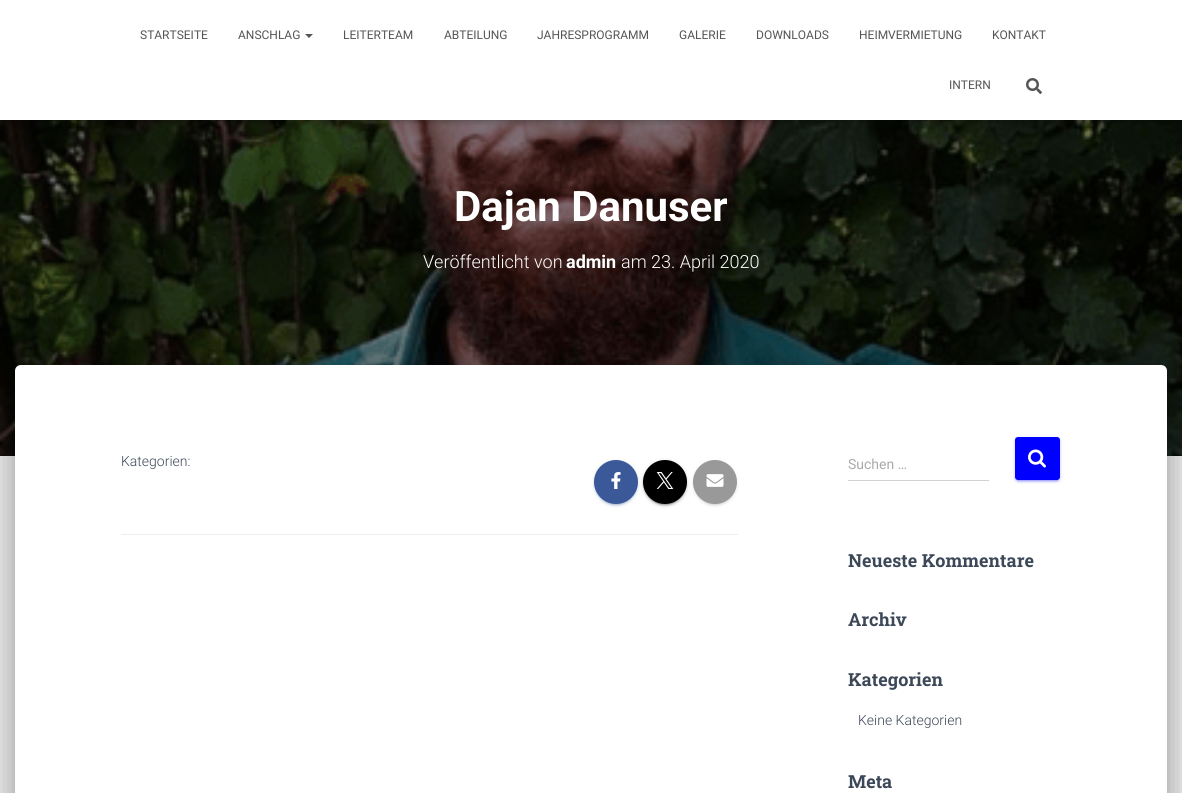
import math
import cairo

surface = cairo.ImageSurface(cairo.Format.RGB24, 1182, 793)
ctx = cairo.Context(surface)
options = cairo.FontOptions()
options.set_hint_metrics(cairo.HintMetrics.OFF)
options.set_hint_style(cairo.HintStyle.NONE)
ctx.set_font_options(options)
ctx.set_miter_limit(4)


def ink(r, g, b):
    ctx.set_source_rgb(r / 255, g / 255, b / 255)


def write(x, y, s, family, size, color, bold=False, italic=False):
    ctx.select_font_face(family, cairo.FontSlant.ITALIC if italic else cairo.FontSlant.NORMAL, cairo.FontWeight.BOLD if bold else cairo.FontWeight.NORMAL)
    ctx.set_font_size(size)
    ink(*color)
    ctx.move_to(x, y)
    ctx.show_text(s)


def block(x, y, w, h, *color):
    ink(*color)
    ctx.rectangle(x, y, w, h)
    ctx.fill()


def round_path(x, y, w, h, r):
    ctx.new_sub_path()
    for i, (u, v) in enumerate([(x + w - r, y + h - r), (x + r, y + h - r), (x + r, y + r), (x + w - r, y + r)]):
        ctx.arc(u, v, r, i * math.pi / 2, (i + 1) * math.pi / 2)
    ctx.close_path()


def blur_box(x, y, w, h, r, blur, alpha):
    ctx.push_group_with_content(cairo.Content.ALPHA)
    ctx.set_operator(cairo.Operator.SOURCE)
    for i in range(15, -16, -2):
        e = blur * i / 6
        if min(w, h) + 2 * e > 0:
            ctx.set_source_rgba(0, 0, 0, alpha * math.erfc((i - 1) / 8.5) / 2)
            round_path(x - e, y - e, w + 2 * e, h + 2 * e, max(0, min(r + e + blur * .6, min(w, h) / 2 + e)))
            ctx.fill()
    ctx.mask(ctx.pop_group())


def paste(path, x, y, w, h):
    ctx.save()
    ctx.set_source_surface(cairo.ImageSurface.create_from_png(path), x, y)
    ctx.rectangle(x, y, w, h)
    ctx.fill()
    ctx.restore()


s1 = dict(family="Roboto", size=12, color=(85, 85, 85))
s2 = dict(family="Roboto", size=42, color=(255, 255, 255), bold=True)
s3 = dict(family="Roboto Light", size=18, color=(255, 255, 255))
s4 = dict(family="Roboto", size=18, color=(255, 255, 255), bold=True)
s5 = dict(family="Roboto Light", size=14, color=(60, 72, 88))
s6 = dict(family="Roboto", size=14, color=(170, 170, 170))
s7 = dict(family="Roboto Slab", size=18, color=(60, 72, 88), bold=True)

ink(229, 229, 229)
ctx.paint()
paste("pic2.png", 0, 120, 1182, 336)
ink(0, 0, 0)
blur_box(2, 6, 1178, 116, 0, 2.5, 0.1)
blur_box(0, 1, 1182, 120, 0, 5, 0.12)
blur_box(6, 7, 1170, 108, 0, 5, 0.42)
block(0, 0, 1182, 120, 255, 255, 255)
write(140, 39, "STARTSEITE", **s1)
write(238, 39, "ANSCHLAG", **s1)
ctx.new_path()
ctx.move_to(305, 34)
ctx.line_to(313, 34)
ctx.line_to(309, 38)
ctx.close_path()
ctx.fill()
write(343, 39, "LEITERTEAM", **s1)
write(444, 39, "ABTEILUNG", **s1)
write(537, 39, "JAHRESPROGRAMM", **s1)
write(679, 39, "GALERIE", **s1)
write(756, 39, "DOWNLOADS", **s1)
write(859, 39, "HEIMVERMIETUNG", **s1)
write(992, 39, "KONTAKT", **s1)
write(949, 89, "INTERN", **s1)
paste("pic1.png", 1026, 78, 16, 16)
write(454, 221, "Dajan Danuser", **s2)
write(423, 268, "Veröffentlicht von", **s3)
write(566, 268, "admin", **s4)
write(621, 268, "am 23. April 2020", **s3)
ink(0, 0, 0)
blur_box(20, 378, 1142, 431, 1, 5, 0.2)
blur_box(10, 366, 1162, 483, 11, 15, 0.12)
blur_box(13, 379, 1156, 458, 8, 12, 0.14)
ink(255, 255, 255)
ctx.new_path()
ctx.move_to(21, 365)
ctx.line_to(1161, 365)
ctx.curve_to(1164.5, 365, 1167, 367.5, 1167, 371)
ctx.line_to(1167, 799)
ctx.line_to(15, 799)
ctx.line_to(15, 371)
ctx.curve_to(15, 367.5, 17.5, 365, 21, 365)
ctx.close_path()
ctx.fill()
write(121, 466, "Kategorien:", **s5)
ink(59, 89, 152)
blur_box(594, 461, 44, 44, 22, 2.5, 0.12)
blur_box(596, 465, 40, 40, 20, 0.5, 0.2)
blur_box(594, 462, 44, 44, 22, 1, 0.14)
ink(59, 89, 152)
ctx.arc(616, 482, 22, 0, 2 * math.pi)
ctx.fill()
paste("pic3.png", 611, 472, 10, 17)
ink(0, 0, 0)
blur_box(643, 461, 44, 44, 22, 2.5, 0.12)
blur_box(645, 465, 40, 40, 20, 0.5, 0.2)
blur_box(643, 462, 44, 44, 22, 1, 0.14)
ink(0, 0, 0)
ctx.arc(665, 482, 22, 0, 2 * math.pi)
ctx.fill()
paste("pic4.png", 656, 472, 18, 17)
ink(153, 153, 153)
blur_box(693, 461, 44, 44, 22, 2.5, 0.12)
blur_box(695, 465, 40, 40, 20, 0.5, 0.2)
blur_box(693, 462, 44, 44, 22, 1, 0.14)
ink(153, 153, 153)
ctx.arc(715, 482, 22, 0, 2 * math.pi)
ctx.fill()
paste("pic5.png", 706, 474, 18, 13)
block(121, 534, 617, 1, 238, 238, 238)
write(848, 469, "Suchen …", **s6)
block(848, 480, 141, 1, 210, 210, 210)
ink(0, 0, 255)
blur_box(1015, 438, 45, 43, 3, 2.5, 0.12)
blur_box(1017, 442, 41, 39, 1, 0.5, 0.2)
blur_box(1015, 439, 45, 43, 3, 1, 0.14)
ink(0, 0, 255)
round_path(1015, 437, 45, 43, 3)
ctx.fill()
paste("pic6.png", 1028, 449, 18, 19)
write(848, 567, "Neueste Kommentare", **s7)
write(848, 626, "Archiv", **s7)
write(848, 686, "Kategorien", **s7)
write(858, 725, "Keine Kategorien", **s5)
write(848, 788, "Meta", **s7)
surface.write_to_png("screenshot.png")
